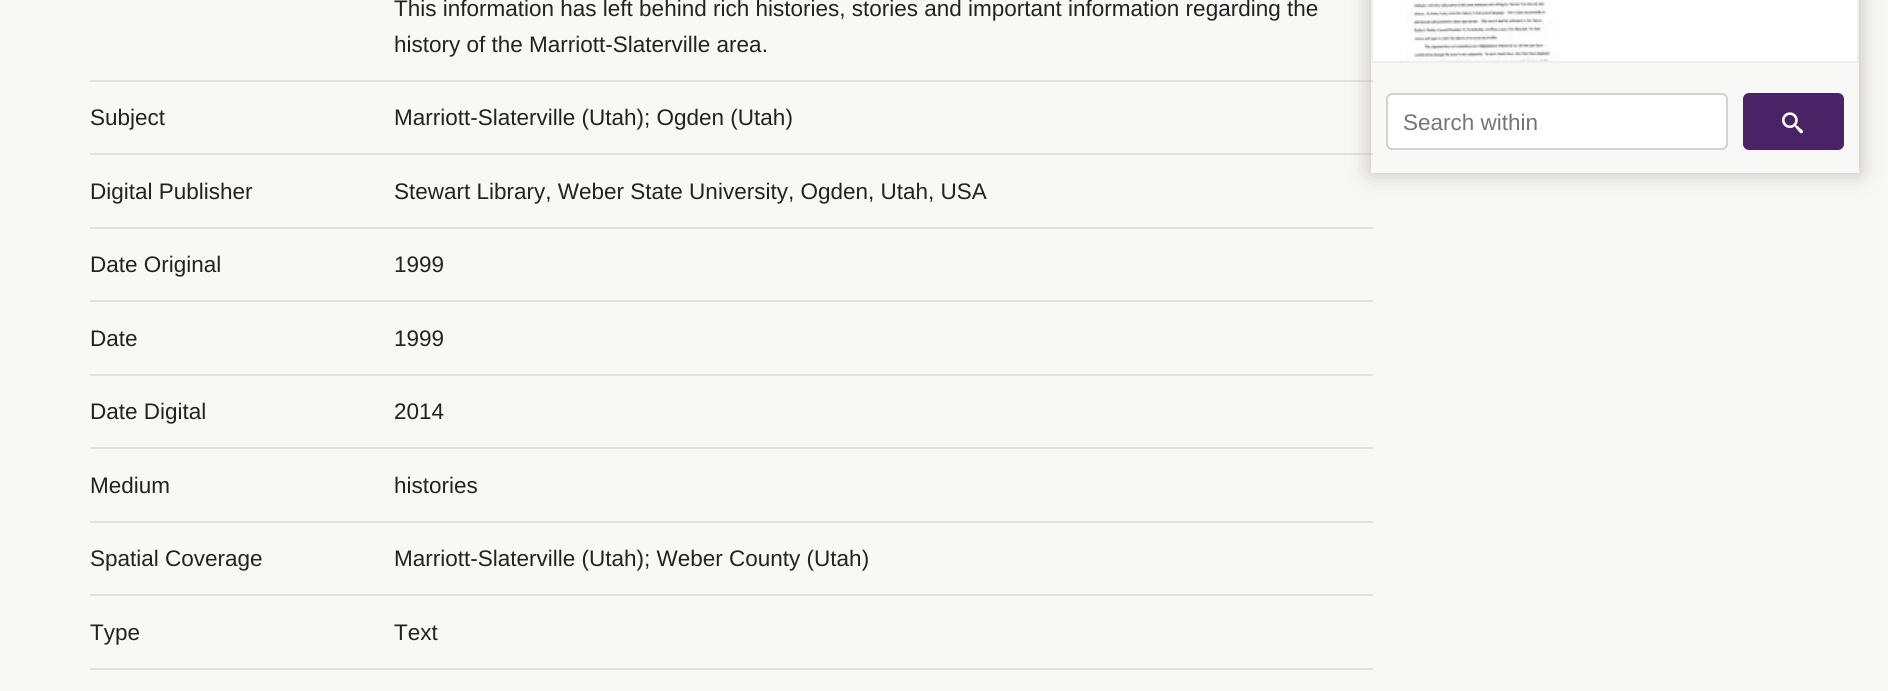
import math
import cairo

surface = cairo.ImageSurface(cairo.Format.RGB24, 1888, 691)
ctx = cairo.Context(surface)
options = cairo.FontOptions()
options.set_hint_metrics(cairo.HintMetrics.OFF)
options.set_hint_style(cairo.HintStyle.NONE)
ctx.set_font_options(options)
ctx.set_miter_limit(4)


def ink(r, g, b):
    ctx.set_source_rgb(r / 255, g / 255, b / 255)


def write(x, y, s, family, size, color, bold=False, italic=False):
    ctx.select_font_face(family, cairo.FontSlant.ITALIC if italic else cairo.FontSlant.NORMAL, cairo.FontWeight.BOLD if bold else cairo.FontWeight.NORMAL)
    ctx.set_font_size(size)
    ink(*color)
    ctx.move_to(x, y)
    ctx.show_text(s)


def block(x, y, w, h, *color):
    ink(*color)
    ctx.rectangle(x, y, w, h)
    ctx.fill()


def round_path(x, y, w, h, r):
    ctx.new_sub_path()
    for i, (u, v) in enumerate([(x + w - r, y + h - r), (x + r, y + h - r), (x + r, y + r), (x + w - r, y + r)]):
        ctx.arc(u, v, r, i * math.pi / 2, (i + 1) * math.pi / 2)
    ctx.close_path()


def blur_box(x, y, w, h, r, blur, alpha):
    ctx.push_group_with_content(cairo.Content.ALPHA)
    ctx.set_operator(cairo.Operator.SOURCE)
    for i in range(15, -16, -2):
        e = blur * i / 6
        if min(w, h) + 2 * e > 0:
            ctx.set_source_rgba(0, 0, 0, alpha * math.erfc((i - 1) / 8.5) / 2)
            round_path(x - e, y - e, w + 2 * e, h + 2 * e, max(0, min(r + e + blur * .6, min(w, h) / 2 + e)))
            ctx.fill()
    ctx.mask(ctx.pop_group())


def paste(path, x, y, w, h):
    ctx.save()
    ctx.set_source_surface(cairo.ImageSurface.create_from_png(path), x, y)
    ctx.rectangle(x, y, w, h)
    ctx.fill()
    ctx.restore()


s1 = dict(family="Liberation Sans", size=22.5, color=(34, 34, 34))
s2 = dict(family="Liberation Sans", size=22.5, color=(117, 117, 117))

ink(248, 248, 247)
ctx.paint()
block(90, 80, 1283, 2, 225, 225, 225)
write(394, 16, "This information has left behind rich histories, stories and important information regarding the", **s1)
write(394, 52, "history of the Marriott-Slaterville area.", **s1)
write(90, 125, "Subject", **s1)
block(90, 153, 1283, 2, 225, 225, 225)
write(394, 125, "Marriott-Slaterville (Utah); Ogden (Utah)", **s1)
write(90, 199, "Digital Publisher", **s1)
block(90, 227, 1283, 2, 225, 225, 225)
write(394, 199, "Stewart Library, Weber State University, Ogden, Utah, USA", **s1)
write(90, 272, "Date Original", **s1)
block(90, 300, 1283, 2, 225, 225, 225)
write(394, 272, "1999", **s1)
write(90, 346, "Date", **s1)
block(90, 374, 1283, 2, 225, 225, 225)
write(394, 346, "1999", **s1)
write(90, 419, "Date Digital", **s1)
block(90, 447, 1283, 2, 225, 225, 225)
write(394, 419, "2014", **s1)
write(90, 493, "Medium", **s1)
block(90, 521, 1283, 2, 225, 225, 225)
write(394, 493, "histories", **s1)
write(90, 566, "Spatial Coverage", **s1)
block(90, 594, 1283, 2, 225, 225, 225)
write(394, 566, "Marriott-Slaterville (Utah); Weber County (Utah)", **s1)
write(90, 640, "Type", **s1)
block(90, 668, 1283, 2, 225, 225, 225)
write(394, 640, "Text", **s1)
ctx.save()
ctx.set_fill_rule(cairo.FillRule.EVEN_ODD)
ctx.new_path()
ctx.move_to(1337, 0)
ctx.line_to(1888, 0)
ctx.line_to(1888, 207)
ctx.line_to(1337, 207)
ctx.close_path()
ctx.move_to(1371, -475)
ctx.line_to(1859, -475)
ctx.line_to(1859, 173)
ctx.line_to(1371, 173)
ctx.close_path()
ctx.clip()
ink(189, 186, 180)
blur_box(1371, -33, 488, 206, 0, 11, 1)
ctx.restore()
ink(255, 255, 255)
ctx.rectangle(1372, -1, 486, 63)
ctx.fill_preserve()
ink(238, 238, 238)
ctx.stroke()
paste("pic1.png", 1406, 0, 155, 61)
ink(255, 255, 255)
round_path(1387, 94, 340, 55, 5)
ctx.fill_preserve()
ink(209, 209, 209)
ctx.stroke()
write(1403, 130, "Search within", **s2)
ink(73, 35, 101)
round_path(1744, 94, 99, 55, 5)
ctx.fill_preserve()
ctx.stroke()
paste("pic2.png", 1782, 112, 21, 22)
surface.write_to_png("screenshot.png")
